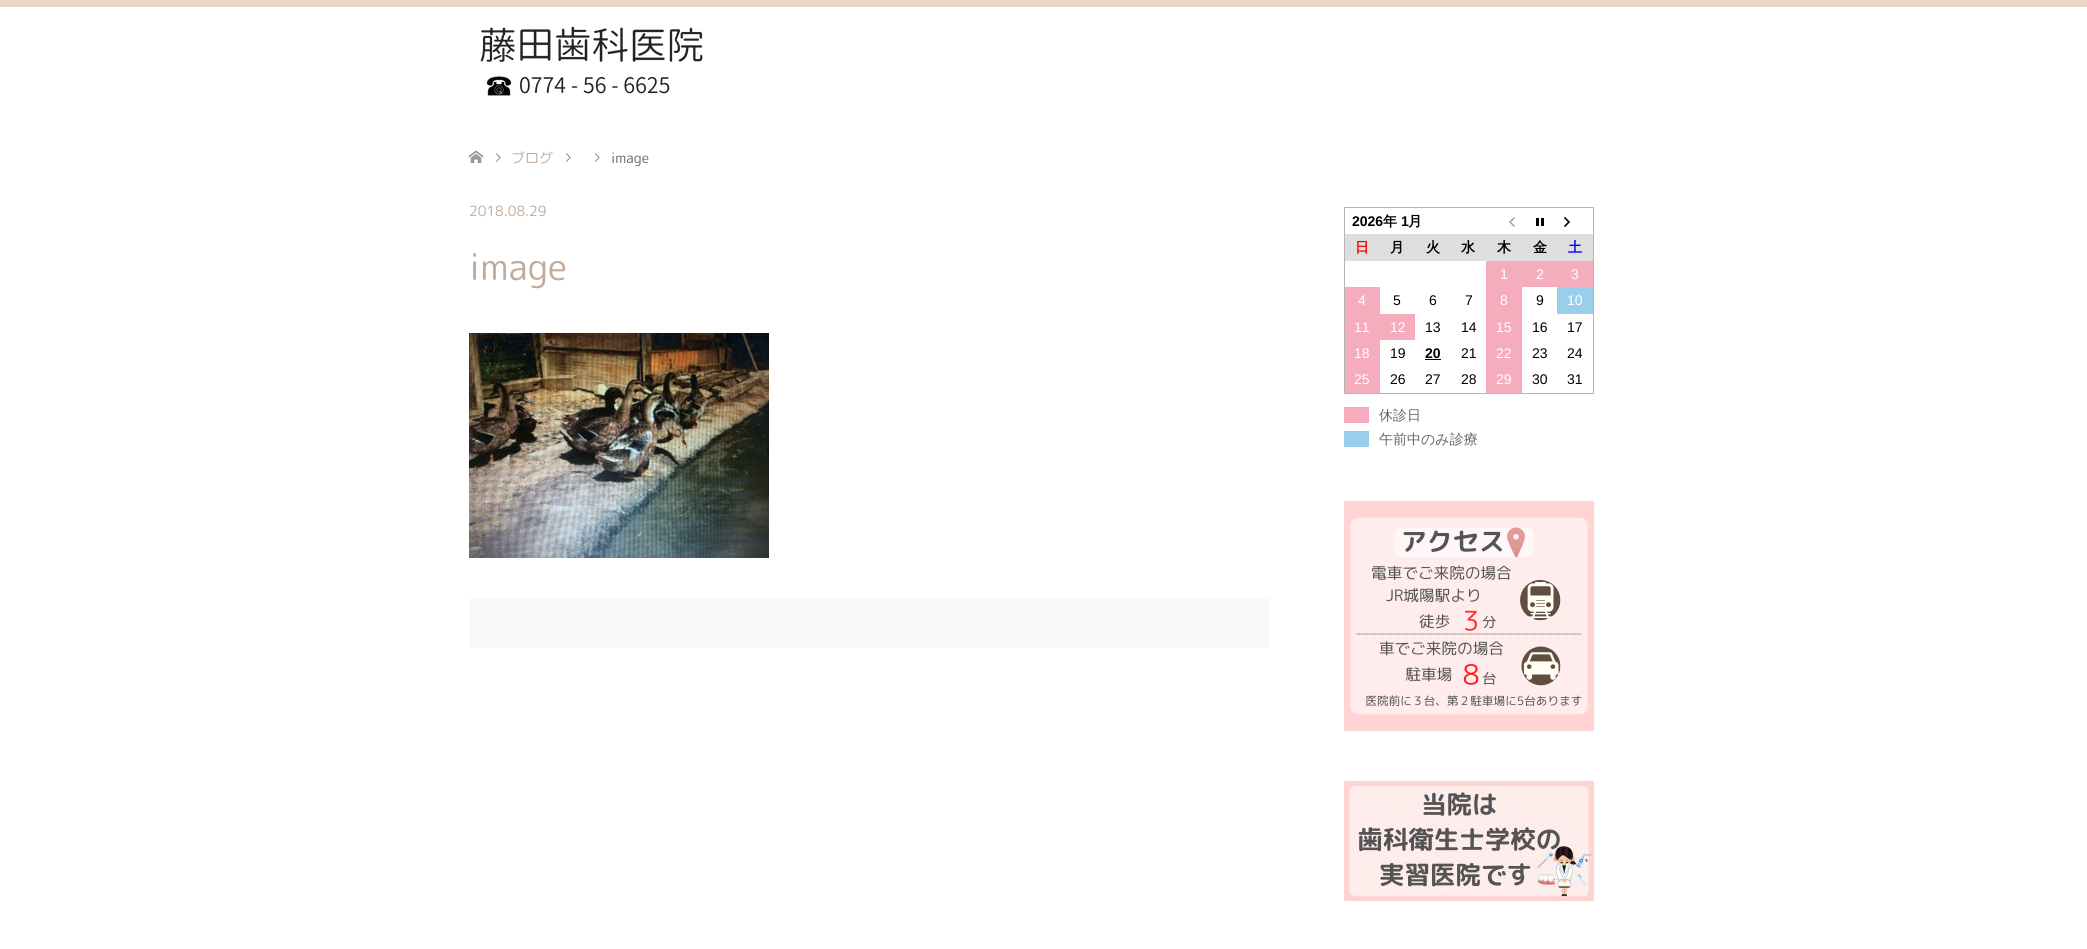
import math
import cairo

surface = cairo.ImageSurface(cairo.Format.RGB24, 2087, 949)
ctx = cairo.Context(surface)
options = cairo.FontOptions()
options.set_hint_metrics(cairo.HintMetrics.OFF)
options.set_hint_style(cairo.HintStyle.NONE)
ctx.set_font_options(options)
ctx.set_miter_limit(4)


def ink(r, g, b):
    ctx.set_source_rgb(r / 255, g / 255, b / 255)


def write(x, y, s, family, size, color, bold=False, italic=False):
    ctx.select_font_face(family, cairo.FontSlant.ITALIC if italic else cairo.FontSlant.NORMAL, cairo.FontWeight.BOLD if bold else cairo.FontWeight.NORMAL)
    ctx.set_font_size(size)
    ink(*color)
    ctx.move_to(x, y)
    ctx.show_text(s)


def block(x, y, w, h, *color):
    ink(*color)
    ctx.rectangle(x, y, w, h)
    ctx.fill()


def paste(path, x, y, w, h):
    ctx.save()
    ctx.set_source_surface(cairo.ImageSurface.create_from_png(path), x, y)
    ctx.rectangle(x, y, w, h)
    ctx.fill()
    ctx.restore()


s1 = dict(family="Rounded Mplus 1c", size=14, color=(194, 170, 153))
s2 = dict(family="Rounded Mplus 1c", size=14, color=(102, 102, 102))
s3 = dict(family="Rounded Mplus 1c", size=36, color=(194, 170, 153))
s4 = dict(family="Liberation Sans", size=14, color=(0, 0, 0), bold=True)
s5 = dict(family="WenQuanYi Zen Hei", size=14, color=(0, 0, 0), bold=True)
s6 = dict(family="WenQuanYi Zen Hei", size=14, color=(255, 0, 0), bold=True)
s7 = dict(family="WenQuanYi Zen Hei", size=14, color=(0, 0, 255), bold=True)
s8 = dict(family="Liberation Sans", size=14, color=(255, 255, 255))
s9 = dict(family="Liberation Sans", size=14, color=(0, 0, 0))
s10 = dict(family="WenQuanYi Zen Hei Medium", size=14, color=(102, 102, 102))

ink(255, 255, 255)
ctx.paint()
block(0, 0, 2087, 7, 237, 213, 197)
paste("pic1.png", 480, 26, 223, 70)
paste("pic2.png", 469, 150, 14, 13)
paste("pic3.png", 496, 153, 5, 9)
write(511, 163, "ブログ", **s1)
paste("pic3.png", 566, 153, 5, 9)
paste("pic3.png", 595, 153, 5, 9)
write(611, 163, "image", **s2)
write(469, 216, "2018.08.29", **s1)
write(469, 280, "image", **s3)
paste("pic4.png", 469, 333, 300, 225)
block(469, 598, 800, 50, 249, 249, 249)
block(1344, 207, 250, 1, 181, 181, 182)
block(1593, 207, 1, 187, 181, 181, 182)
block(1344, 393, 250, 1, 181, 181, 182)
block(1344, 207, 1, 187, 181, 181, 182)
write(1352, 226, "2026", **s4)
write(1383, 226, "年", **s5)
write(1401, 226, "1", **s4)
write(1408, 226, "月", **s5)
paste("pic5.png", 1509, 217, 6, 10)
paste("pic6.png", 1536, 218, 8, 8)
paste("pic7.png", 1564, 217, 6, 10)
block(1345, 234, 248, 27, 222, 222, 222)
write(1355, 252, "日", **s6)
write(1390, 252, "月", **s5)
write(1426, 252, "火", **s5)
write(1461, 252, "水", **s5)
write(1497, 252, "木", **s5)
write(1533, 252, "金", **s5)
write(1568, 252, "土", **s7)
block(1486, 261, 107, 26, 245, 172, 189)
write(1500, 279, "1", **s8)
write(1536, 279, "2", **s8)
write(1571, 279, "3", **s8)
block(1345, 287, 35, 106, 245, 172, 189)
write(1358, 305, "4", **s8)
write(1393, 305, "5", **s9)
write(1429, 305, "6", **s9)
write(1465, 305, "7", **s9)
block(1486, 287, 36, 106, 245, 172, 189)
write(1500, 305, "8", **s8)
write(1536, 305, "9", **s9)
block(1557, 287, 36, 27, 153, 207, 235)
write(1567, 305, "10", **s8)
write(1354, 332, "11", **s8)
block(1380, 314, 35, 26, 245, 172, 189)
write(1390, 332, "12", **s8)
write(1425, 332, "13", **s9)
write(1461, 332, "14", **s9)
write(1496, 332, "15", **s8)
write(1532, 332, "16", **s9)
write(1567, 332, "17", **s9)
write(1354, 358, "18", **s8)
write(1390, 358, "19", **s9)
write(1425, 358, "20", **s4)
block(1425, 359, 16, 1, 0, 0, 0)
write(1461, 358, "21", **s9)
write(1496, 358, "22", **s8)
write(1532, 358, "23", **s9)
write(1567, 358, "24", **s9)
write(1354, 384, "25", **s8)
write(1390, 384, "26", **s9)
write(1425, 384, "27", **s9)
write(1461, 384, "28", **s9)
write(1496, 384, "29", **s8)
write(1532, 384, "30", **s9)
write(1567, 384, "31", **s9)
block(1344, 407, 25, 16, 245, 172, 189)
write(1379, 420, "休診日", **s10)
block(1344, 431, 25, 16, 153, 207, 235)
write(1379, 444, "午前中のみ診療", **s10)
paste("pic8.png", 1344, 501, 250, 230)
paste("pic9.png", 1344, 781, 250, 120)
surface.write_to_png("screenshot.png")
